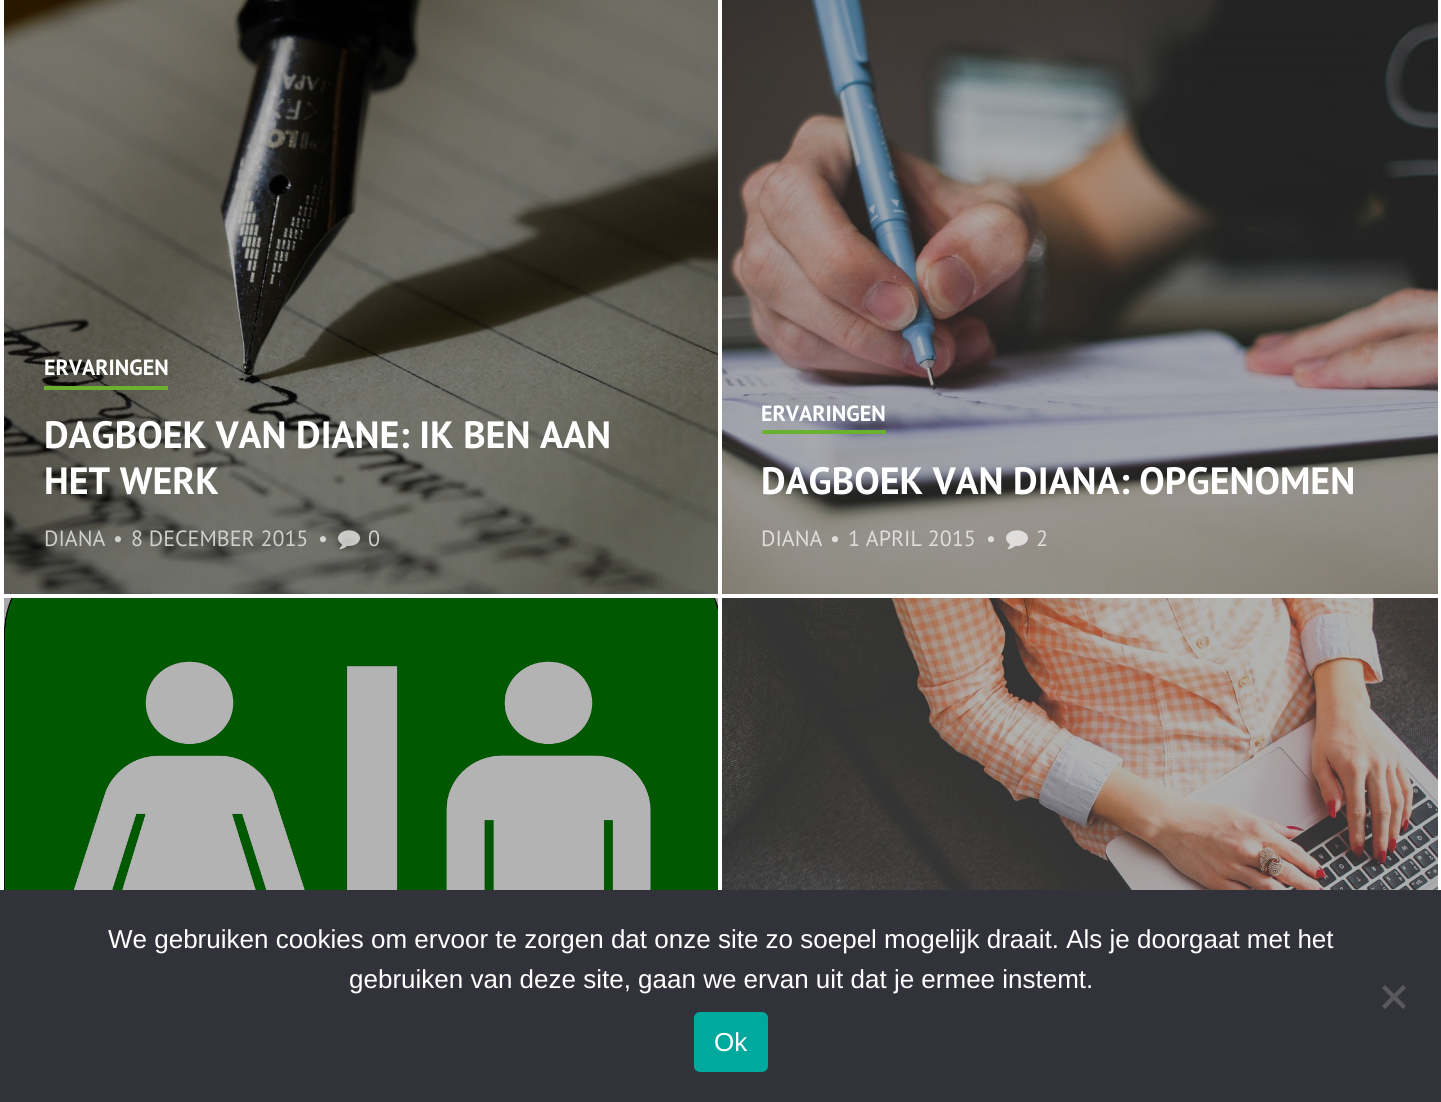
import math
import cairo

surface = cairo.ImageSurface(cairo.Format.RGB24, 1441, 1102)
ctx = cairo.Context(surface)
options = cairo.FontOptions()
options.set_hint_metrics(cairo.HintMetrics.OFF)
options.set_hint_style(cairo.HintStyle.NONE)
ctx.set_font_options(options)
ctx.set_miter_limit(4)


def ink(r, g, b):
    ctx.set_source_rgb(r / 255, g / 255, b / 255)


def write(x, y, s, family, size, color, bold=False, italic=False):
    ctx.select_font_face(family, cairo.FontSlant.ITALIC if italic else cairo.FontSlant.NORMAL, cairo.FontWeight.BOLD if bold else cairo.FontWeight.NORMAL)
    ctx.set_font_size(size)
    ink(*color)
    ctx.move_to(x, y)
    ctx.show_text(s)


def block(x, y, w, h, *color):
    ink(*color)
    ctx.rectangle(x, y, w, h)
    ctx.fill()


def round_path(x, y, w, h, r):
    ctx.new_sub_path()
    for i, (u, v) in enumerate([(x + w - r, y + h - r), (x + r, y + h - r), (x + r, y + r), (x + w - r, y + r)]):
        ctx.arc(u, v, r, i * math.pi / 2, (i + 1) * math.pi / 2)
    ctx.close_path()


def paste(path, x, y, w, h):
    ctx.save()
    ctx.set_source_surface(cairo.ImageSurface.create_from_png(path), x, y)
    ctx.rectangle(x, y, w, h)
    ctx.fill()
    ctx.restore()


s1 = dict(family="PT Sans", size=22, color=(255, 255, 255), bold=True)
s2 = dict(family="PT Sans", size=38, color=(255, 255, 255), bold=True)
s3 = dict(family="PT Sans", size=22, color=(207, 207, 204))
s4 = dict(family="PT Sans", size=22, color=(212, 212, 210))
s5 = dict(family="PT Sans", size=22, color=(222, 221, 219))
s6 = dict(family="Liberation Sans", size=26, color=(255, 255, 255))

ink(255, 255, 255)
ctx.paint()
paste("pic1.png", 4, 0, 714, 594)
block(44, 386, 124, 4, 107, 177, 48)
write(44, 375, "ERVARINGEN", **s1)
write(44, 448, "DAGBOEK VAN DIANE: IK BEN AAN", **s2)
write(44, 494, "HET WERK", **s2)
write(44, 546, "DIANA", **s3)
write(113, 546, "•", **s3)
write(131, 546, "8 DECEMBER 2015", **s3)
write(318, 546, "•", **s4)
paste("pic2.png", 338, 530, 22, 20)
write(368, 546, "0", **s3)
paste("pic3.png", 722, 0, 716, 594)
block(762, 430, 124, 4, 107, 177, 48)
write(761, 421, "ERVARINGEN", **s1)
write(761, 494, "DAGBOEK VAN DIANA: OPGENOMEN", **s2)
write(761, 546, "DIANA", **s5)
write(830, 546, "•", **s5)
write(848, 546, "1 APRIL 2015", **s5)
write(986, 546, "•", **s5)
paste("pic4.png", 1006, 530, 22, 20)
write(1036, 546, "2", **s5)
block(4, 598, 714, 33, 238, 238, 238)
paste("pic5.png", 4, 598, 714, 292)
ctx.set_source_rgba(0, 0, 0, 0.3)
ctx.rectangle(4, 598, 714, 292)
ctx.fill()
paste("pic6.png", 722, 598, 716, 292)
block(0, 890, 1441, 212, 50, 50, 58)
write(108, 948, "We gebruiken cookies om ervoor te zorgen dat onze site zo soepel mogelijk draait. Als je doorgaat met het", **s6)
write(349, 988, "gebruiken van deze site, gaan we ervan uit dat je ermee instemt.", **s6)
ink(89, 89, 93)
ctx.new_path()
ctx.move_to(1403, 985)
ctx.line_to(1406, 988)
ctx.line_to(1385, 1009)
ctx.line_to(1382, 1006)
ctx.close_path()
ctx.fill()
ctx.new_path()
ctx.move_to(1382, 988)
ctx.line_to(1385, 985)
ctx.line_to(1406, 1006)
ctx.line_to(1403, 1009)
ctx.close_path()
ctx.fill()
ink(0, 169, 157)
round_path(694, 1012, 74, 60, 6)
ctx.fill()
write(714, 1051, "Ok", **s6)
surface.write_to_png("screenshot.png")
